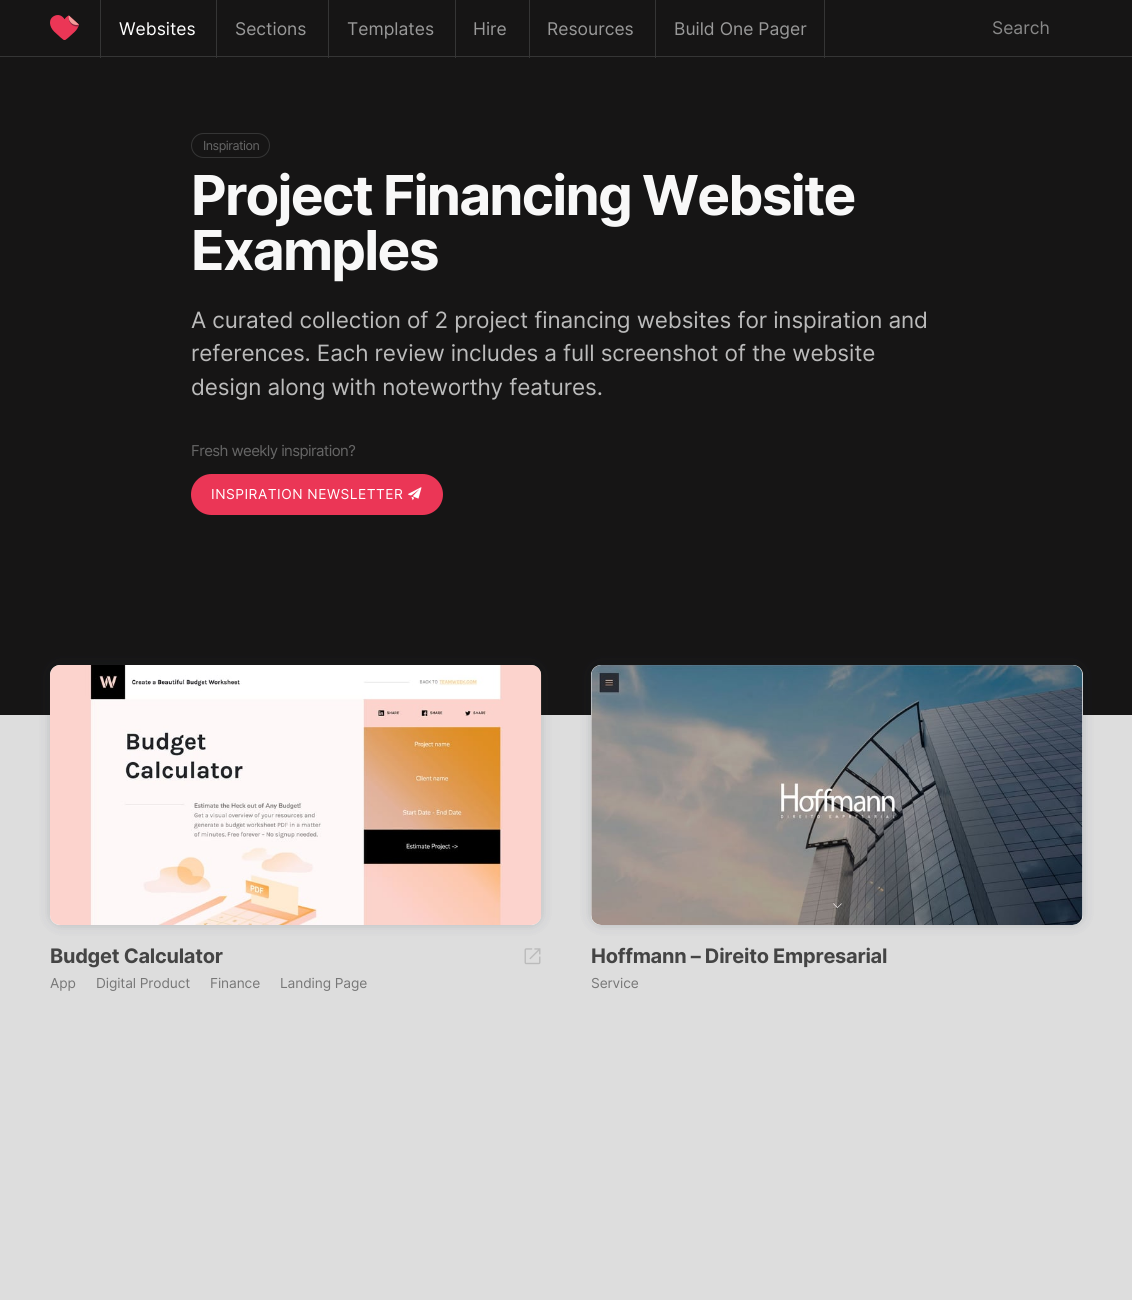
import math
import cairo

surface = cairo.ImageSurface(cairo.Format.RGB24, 1132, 1300)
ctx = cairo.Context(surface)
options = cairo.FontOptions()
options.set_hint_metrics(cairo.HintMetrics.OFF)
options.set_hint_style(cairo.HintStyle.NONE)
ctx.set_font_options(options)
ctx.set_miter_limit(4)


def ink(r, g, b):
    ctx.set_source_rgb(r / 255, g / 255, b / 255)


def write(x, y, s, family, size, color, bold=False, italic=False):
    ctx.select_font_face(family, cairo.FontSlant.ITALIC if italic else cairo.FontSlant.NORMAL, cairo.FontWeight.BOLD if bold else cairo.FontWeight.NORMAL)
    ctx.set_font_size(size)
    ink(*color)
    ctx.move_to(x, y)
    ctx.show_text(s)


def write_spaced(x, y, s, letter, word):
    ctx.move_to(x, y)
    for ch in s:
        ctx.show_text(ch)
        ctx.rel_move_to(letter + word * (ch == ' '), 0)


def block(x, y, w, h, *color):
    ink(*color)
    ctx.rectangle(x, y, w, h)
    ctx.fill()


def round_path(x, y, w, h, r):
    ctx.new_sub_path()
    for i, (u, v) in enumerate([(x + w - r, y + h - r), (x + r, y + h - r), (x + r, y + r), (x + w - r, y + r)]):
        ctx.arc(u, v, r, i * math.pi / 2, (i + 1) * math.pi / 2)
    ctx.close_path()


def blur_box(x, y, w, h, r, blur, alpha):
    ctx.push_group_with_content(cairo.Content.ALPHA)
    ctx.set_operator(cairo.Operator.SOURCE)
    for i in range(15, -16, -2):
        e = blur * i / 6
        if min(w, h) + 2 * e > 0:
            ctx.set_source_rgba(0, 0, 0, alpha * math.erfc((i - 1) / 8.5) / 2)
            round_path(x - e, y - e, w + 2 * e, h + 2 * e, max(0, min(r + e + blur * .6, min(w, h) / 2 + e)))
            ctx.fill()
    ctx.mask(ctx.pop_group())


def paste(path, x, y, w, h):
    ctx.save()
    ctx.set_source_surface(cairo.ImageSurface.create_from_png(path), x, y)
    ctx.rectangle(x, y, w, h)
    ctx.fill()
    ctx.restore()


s1 = dict(family="Inter", size=17.5, color=(255, 255, 255))
s2 = dict(family="Inter", size=17.5, color=(153, 153, 153))
s3 = dict(family="Inter", size=17.5, color=(136, 136, 136))

ink(221, 221, 221)
ctx.paint()
block(0, 0, 1132, 715, 22, 21, 21)
block(0, 56, 1132, 1, 53, 53, 53)
paste("pic1.png", 50, 15, 29, 25)
block(100, 0, 1, 58, 53, 53, 53)
write(119, 35, "Websites", **s1)
block(216, 0, 1, 58, 53, 53, 53)
write(235, 35, "Sections", **s2)
block(328, 0, 1, 58, 53, 53, 53)
write(347, 35, "Templates", **s2)
block(455, 0, 1, 58, 53, 53, 53)
write(473, 35, "Hire", **s2)
block(529, 0, 1, 58, 53, 53, 53)
write(547, 35, "Resources", **s2)
block(824, 0, 1, 58, 53, 53, 53)
block(655, 0, 1, 58, 53, 53, 53)
write(674, 35, "Build One Pager", **s2)
write(992, 34, "Search", **s3)
round_path(191.5, 133.5, 78, 24, 12)
ink(53, 53, 53)
ctx.set_line_width(1)
ctx.stroke()
ctx.set_font_size(12.5)
ink(102, 102, 102)
write_spaced(203, 150, "Inspiration", -0.5, 0)
ctx.select_font_face("Inter", cairo.FontSlant.NORMAL, cairo.FontWeight.BOLD)
ctx.set_font_size(55)
ink(248, 248, 248)
write_spaced(191, 215, "Project Financing Website", -1.75, 0)
write_spaced(191, 270, "Examples", -1.75, 0)
ctx.select_font_face("Inter")
ctx.set_font_size(22.5)
ink(187, 187, 187)
write_spaced(191, 328, "A curated collection of 2 project financing websites for inspiration and", -0.12, 0)
write_spaced(191, 361, "references. Each review includes a full screenshot of the website", -0.12, 0)
write_spaced(191, 395, "design along with noteworthy features.", -0.12, 0)
ctx.set_font_size(15)
ink(102, 102, 102)
write_spaced(191, 456, "Fresh weekly inspiration?", -0.6, 0)
ink(235, 54, 86)
round_path(191, 474, 252, 41, 20.5)
ctx.fill()
ctx.set_font_size(13.75)
ink(255, 255, 255)
write_spaced(211, 499, "INSPIRATION NEWSLETTER", 0.5, 0)
paste("pic2.png", 408, 487, 14, 14)
ink(39, 49, 65)
blur_box(50, 665, 491, 260, 10, 6, 0.1)
ink(255, 255, 255)
round_path(50, 665, 491, 260, 10)
ctx.fill()
ink(39, 49, 65)
blur_box(50, 665, 491, 260, 10, 6, 0.1)
paste("pic3.png", 50, 665, 492, 260)
ctx.select_font_face("Inter", cairo.FontSlant.NORMAL, cairo.FontWeight.BOLD)
ctx.set_font_size(20)
ink(68, 68, 68)
write_spaced(50, 963, "Budget Calculator", -0.25, 0)
paste("pic4.png", 524, 948, 17, 17)
ctx.select_font_face("Inter")
ctx.set_font_size(13.75)
ink(119, 119, 119)
write_spaced(50, 988, "App", -0.12, 0)
write_spaced(96, 988, "Digital Product", -0.12, 0)
write_spaced(210, 988, "Finance", -0.12, 0)
write_spaced(280, 988, "Landing Page", -0.12, 0)
ink(39, 49, 65)
blur_box(591, 665, 492, 260, 10, 6, 0.1)
ink(255, 255, 255)
round_path(591, 665, 492, 260, 10)
ctx.fill()
ink(39, 49, 65)
blur_box(591, 665, 492, 260, 10, 6, 0.1)
paste("pic5.png", 591, 665, 492, 260)
ctx.select_font_face("Inter", cairo.FontSlant.NORMAL, cairo.FontWeight.BOLD)
ctx.set_font_size(20)
ink(68, 68, 68)
write_spaced(591, 963, "Hoffmann – Direito Empresarial", -0.25, 0)
ctx.select_font_face("Inter")
ctx.set_font_size(13.75)
ink(119, 119, 119)
write_spaced(591, 988, "Service", -0.12, 0)
surface.write_to_png("screenshot.png")
